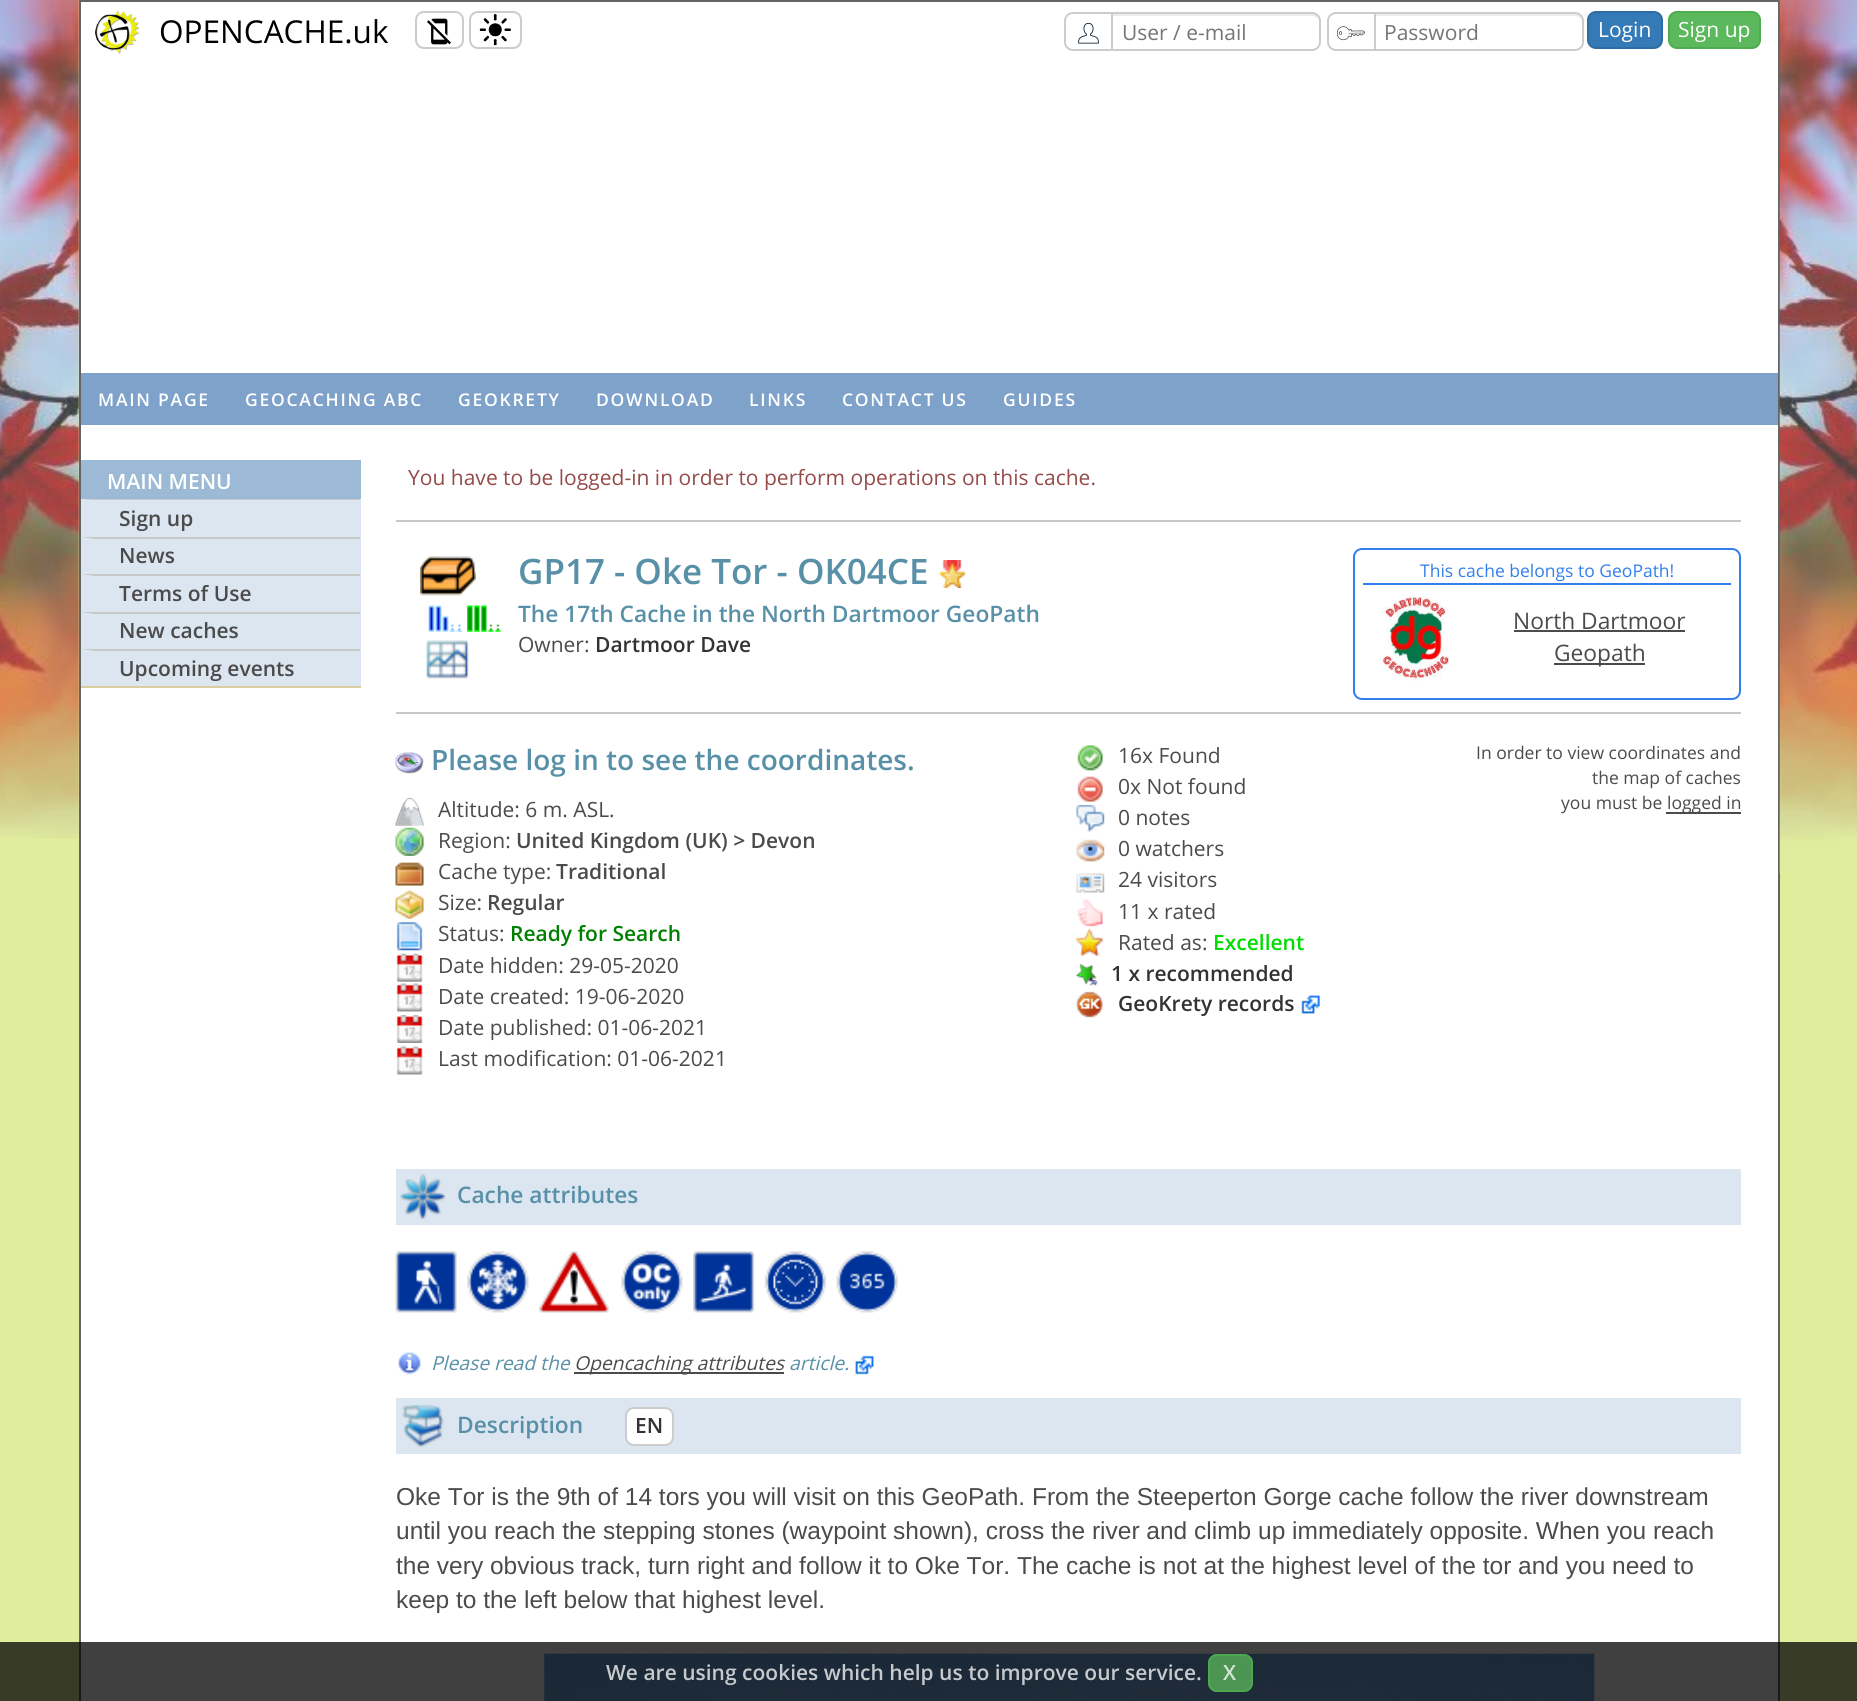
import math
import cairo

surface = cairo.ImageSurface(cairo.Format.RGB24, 1857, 1701)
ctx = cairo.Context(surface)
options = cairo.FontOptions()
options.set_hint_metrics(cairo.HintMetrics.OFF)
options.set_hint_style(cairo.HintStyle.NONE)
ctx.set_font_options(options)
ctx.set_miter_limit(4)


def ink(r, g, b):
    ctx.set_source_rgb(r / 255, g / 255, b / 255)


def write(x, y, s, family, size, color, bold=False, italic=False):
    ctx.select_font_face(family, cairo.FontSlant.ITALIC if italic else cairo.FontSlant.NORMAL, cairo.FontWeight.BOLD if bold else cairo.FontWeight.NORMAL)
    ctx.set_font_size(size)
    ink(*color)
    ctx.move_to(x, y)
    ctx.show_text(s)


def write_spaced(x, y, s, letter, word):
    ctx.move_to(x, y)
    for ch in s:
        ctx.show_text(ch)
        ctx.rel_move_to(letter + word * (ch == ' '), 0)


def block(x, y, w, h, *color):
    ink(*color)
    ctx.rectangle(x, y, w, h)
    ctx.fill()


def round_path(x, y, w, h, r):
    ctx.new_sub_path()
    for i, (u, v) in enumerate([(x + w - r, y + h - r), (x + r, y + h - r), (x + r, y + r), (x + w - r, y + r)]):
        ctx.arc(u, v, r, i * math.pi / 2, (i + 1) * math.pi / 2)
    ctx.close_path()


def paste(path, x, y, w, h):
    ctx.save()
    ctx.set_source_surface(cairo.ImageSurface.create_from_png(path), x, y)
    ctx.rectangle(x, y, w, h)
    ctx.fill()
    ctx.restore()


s1 = dict(family="Open Sans", size=31.5, color=(0, 0, 0))
s2 = dict(family="Open Sans", size=21, color=(117, 117, 117))
s3 = dict(family="Open Sans", size=21, color=(255, 255, 255))
s4 = dict(family="Open Sans SemiBold", size=21, color=(255, 255, 255))
s5 = dict(family="Open Sans SemiBold", size=21, color=(75, 75, 75))
s6 = dict(family="Open Sans", size=21, color=(150, 75, 75))
s7 = dict(family="Open Sans SemiBold", size=35, color=(88, 144, 168))
s8 = dict(family="Open Sans SemiBold", size=22.75, color=(88, 144, 168))
s9 = dict(family="Open Sans", size=21, color=(75, 75, 75))
s10 = dict(family="Open Sans SemiBold", size=21, color=(51, 51, 51))
s11 = dict(family="Open Sans", size=17.5, color=(51, 127, 237))
s12 = dict(family="Open Sans", size=22.75, color=(75, 75, 75))
s13 = dict(family="Open Sans SemiBold", size=28, color=(88, 144, 168))
s14 = dict(family="Open Sans SemiBold", size=21, color=(0, 128, 0))
s15 = dict(family="Open Sans SemiBold", size=21, color=(0, 221, 0))
s16 = dict(family="Open Sans", size=17.5, color=(75, 75, 75))
s17 = dict(family="Open Sans", size=19.25, color=(88, 144, 168), italic=True)
s18 = dict(family="Open Sans", size=19.25, color=(75, 75, 75), italic=True)
s19 = dict(family="Liberation Sans", size=24.5, color=(75, 75, 75))
s20 = dict(family="Open Sans SemiBold", size=21, color=(198, 202, 205))
s21 = dict(family="Open Sans SemiBold", size=21, color=(210, 228, 212))

ink(224, 237, 157)
ctx.paint()
ink(255, 255, 255)
ctx.rectangle(80, 1, 1699, 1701)
ctx.fill_preserve()
ink(100, 100, 100)
ctx.stroke()
paste("pic1.png", 0, 0, 79, 839)
paste("pic2.png", 95, 10, 45, 44)
write(159, 43, "OPENCACHE.uk", **s1)
round_path(416, 12, 47, 36, 8)
ink(204, 204, 204)
ctx.stroke()
paste("pic3.png", 427, 18, 24, 27)
round_path(470, 12, 51, 36, 8)
ctx.stroke()
paste("pic4.png", 479, 14, 32, 32)
ctx.new_path()
ctx.move_to(1073, 13)
ctx.line_to(1112, 13)
ctx.line_to(1112, 50)
ctx.line_to(1073, 50)
ctx.curve_to(1068.5, 50, 1065, 46.5, 1065, 42)
ctx.line_to(1065, 21)
ctx.curve_to(1065, 16.5, 1068.5, 13, 1073, 13)
ctx.close_path()
ctx.stroke()
paste("pic5.png", 1078, 22, 21, 22)
ink(255, 255, 255)
ctx.new_path()
ctx.move_to(1111, 12)
ctx.line_to(1312, 12)
ctx.curve_to(1317, 12, 1321, 16, 1321, 21)
ctx.line_to(1321, 42)
ctx.curve_to(1321, 47, 1317, 51, 1312, 51)
ctx.line_to(1111, 51)
ctx.close_path()
ctx.fill()
ink(236, 236, 236)
ctx.new_path()
ctx.move_to(1113, 16)
ctx.line_to(1312, 16)
ctx.curve_to(1316, 16, 1320, 19, 1320, 23)
ctx.line_to(1320, 21)
ctx.curve_to(1320, 17, 1317, 14, 1313, 14)
ctx.line_to(1113, 14)
ctx.close_path()
ctx.fill()
ctx.new_path()
ctx.move_to(1112, 13)
ctx.line_to(1312, 13)
ctx.curve_to(1316.5, 13, 1320, 16.5, 1320, 21)
ctx.line_to(1320, 42)
ctx.curve_to(1320, 46.5, 1316.5, 50, 1312, 50)
ctx.line_to(1112, 50)
ctx.close_path()
ink(204, 204, 204)
ctx.stroke()
write(1122, 40, "User / e-mail", **s2)
ctx.new_path()
ctx.move_to(1336, 13)
ctx.line_to(1375, 13)
ctx.line_to(1375, 50)
ctx.line_to(1336, 50)
ctx.curve_to(1331.5, 50, 1328, 46.5, 1328, 42)
ctx.line_to(1328, 21)
ctx.curve_to(1328, 16.5, 1331.5, 13, 1336, 13)
ctx.close_path()
ink(204, 204, 204)
ctx.stroke()
paste("pic6.png", 1337, 26, 28, 15)
ink(255, 255, 255)
ctx.new_path()
ctx.move_to(1374, 12)
ctx.line_to(1575, 12)
ctx.curve_to(1580, 12, 1584, 16, 1584, 21)
ctx.line_to(1584, 42)
ctx.curve_to(1584, 47, 1580, 51, 1575, 51)
ctx.line_to(1374, 51)
ctx.close_path()
ctx.fill()
ink(236, 236, 236)
ctx.new_path()
ctx.move_to(1376, 16)
ctx.line_to(1575, 16)
ctx.curve_to(1579, 16, 1582, 19, 1582, 23)
ctx.line_to(1582, 21)
ctx.curve_to(1582, 17, 1579, 14, 1575, 14)
ctx.line_to(1376, 14)
ctx.close_path()
ctx.fill()
ctx.new_path()
ctx.move_to(1375, 13)
ctx.line_to(1575, 13)
ctx.curve_to(1579.5, 13, 1583, 16.5, 1583, 21)
ctx.line_to(1583, 42)
ctx.curve_to(1583, 46.5, 1579.5, 50, 1575, 50)
ctx.line_to(1375, 50)
ctx.close_path()
ink(204, 204, 204)
ctx.stroke()
write(1384, 40, "Password", **s2)
ink(51, 122, 183)
round_path(1588, 12, 74, 36, 8)
ctx.fill_preserve()
ink(46, 109, 164)
ctx.stroke()
write(1598, 37, "Login", **s3)
ink(92, 184, 92)
round_path(1669, 12, 91, 36, 8)
ctx.fill_preserve()
ink(76, 174, 76)
ctx.stroke()
write(1678, 37, "Sign up", **s3)
paste("pic7.png", 1779, 0, 78, 874)
block(81, 373, 1697, 52, 127, 162, 202)
ctx.select_font_face("Open Sans SemiBold")
ctx.set_font_size(17.5)
ink(255, 255, 255)
write_spaced(98, 406, "MAIN PAGE", 1.75, 0)
write_spaced(245, 406, "GEOCACHING ABC", 1.75, 0)
write_spaced(458, 406, "GEOKRETY", 1.75, 0)
write_spaced(596, 406, "DOWNLOAD", 1.75, 0)
write_spaced(749, 406, "LINKS", 1.75, 0)
write_spaced(842, 406, "CONTACT US", 1.75, 0)
write_spaced(1003, 406, "GUIDES", 1.75, 0)
block(81, 499, 280, 187, 219, 230, 241)
block(81, 686, 280, 2, 216, 206, 159)
block(81, 460, 280, 39, 156, 186, 214)
write(107, 489, "MAIN MENU", **s4)
ink(200, 200, 200)
ctx.new_path()
ctx.move_to(80, 499)
ctx.line_to(360, 499)
ctx.line_to(360, 500)
ctx.line_to(93, 500)
ctx.close_path()
ctx.fill()
ctx.save()
ctx.rectangle(81, 460, 280, 875)
ctx.clip()
ink(219, 230, 241)
ctx.new_path()
ctx.move_to(80.5, 537)
ctx.line_to(80.5, 499)
ctx.line_to(93, 500.5)
ctx.line_to(93, 537)
ctx.close_path()
ctx.fill()
ctx.restore()
write(119, 526, "Sign up", **s5)
ink(200, 200, 200)
ctx.new_path()
ctx.move_to(80, 537)
ctx.line_to(360, 537)
ctx.line_to(360, 539)
ctx.line_to(93, 539)
ctx.close_path()
ctx.fill()
ctx.save()
ctx.rectangle(81, 460, 280, 875)
ctx.clip()
ink(219, 230, 241)
ctx.new_path()
ctx.move_to(80.5, 574)
ctx.line_to(80.5, 537)
ctx.line_to(93, 539)
ctx.line_to(93, 574)
ctx.close_path()
ctx.fill()
ctx.restore()
write(119, 563, "News", **s5)
ink(200, 200, 200)
ctx.new_path()
ctx.move_to(80, 574)
ctx.line_to(360, 574)
ctx.line_to(360, 576)
ctx.line_to(93, 576)
ctx.close_path()
ctx.fill()
ctx.save()
ctx.rectangle(81, 460, 280, 875)
ctx.clip()
ink(219, 230, 241)
ctx.new_path()
ctx.move_to(80.5, 612.5)
ctx.line_to(80.5, 574)
ctx.line_to(93, 576)
ctx.line_to(93, 612.5)
ctx.close_path()
ctx.fill()
ctx.restore()
write(119, 601, "Terms of Use", **s5)
ink(200, 200, 200)
ctx.new_path()
ctx.move_to(80, 612)
ctx.line_to(360, 612)
ctx.line_to(360, 614)
ctx.line_to(93, 614)
ctx.close_path()
ctx.fill()
ctx.save()
ctx.rectangle(81, 460, 280, 875)
ctx.clip()
ink(219, 230, 241)
ctx.new_path()
ctx.move_to(80.5, 649)
ctx.line_to(80.5, 612.5)
ctx.line_to(93, 614)
ctx.line_to(93, 649)
ctx.close_path()
ctx.fill()
ctx.restore()
write(119, 638, "New caches", **s5)
ink(200, 200, 200)
ctx.new_path()
ctx.move_to(80, 649)
ctx.line_to(360, 649)
ctx.line_to(360, 651)
ctx.line_to(93, 651)
ctx.close_path()
ctx.fill()
ctx.save()
ctx.rectangle(81, 460, 280, 875)
ctx.clip()
ink(219, 230, 241)
ctx.new_path()
ctx.move_to(80.5, 686)
ctx.line_to(80.5, 649)
ctx.line_to(93, 651)
ctx.line_to(93, 686)
ctx.close_path()
ctx.fill()
ctx.restore()
write(119, 676, "Upcoming events", **s5)
block(396, 712, 1345, 2, 200, 200, 200)
block(396, 520, 1345, 2, 200, 200, 200)
write(408, 485, "You have to be logged-in in order to perform operations on this cache.", **s6)
paste("pic8.png", 420, 556, 56, 40)
paste("pic9.png", 428, 605, 34, 27)
paste("pic10.png", 467, 605, 34, 27)
paste("pic11.png", 426, 640, 43, 39)
write(518, 584, "GP17 - Oke Tor - OK04CE", **s7)
paste("pic12.png", 939, 560, 27, 28)
write(518, 622, "The 17th Cache in the North Dartmoor GeoPath", **s8)
write(518, 652, "Owner:", **s9)
write(595, 652, "Dartmoor Dave", **s10)
round_path(1354, 549, 386, 150, 8)
ink(51, 127, 237)
ctx.stroke()
block(1363, 583, 368, 2, 51, 127, 237)
write(1420, 577, "This cache belongs to GeoPath!", **s11)
paste("pic13.png", 1379, 593, 70, 88)
write(1513, 629, "North Dartmoor", **s12)
block(1514, 630, 171, 2, 75, 75, 75)
block(1554, 663, 91, 2, 75, 75, 75)
write(1554, 661, "Geopath", **s12)
paste("pic14.png", 395, 752, 29, 22)
write(431, 770, "Please log in to see the coordinates.", **s13)
paste("pic15.png", 395, 798, 29, 28)
write(438, 817, "Altitude: 6 m. ASL.", **s9)
paste("pic16.png", 395, 827, 29, 29)
write(438, 848, "Region:", **s9)
write(516, 848, "United Kingdom (UK) > Devon", **s5)
paste("pic17.png", 395, 862, 29, 24)
write(438, 879, "Cache type:", **s9)
write(556, 879, "Traditional", **s5)
paste("pic18.png", 395, 890, 29, 29)
write(438, 910, "Size:", **s9)
write(487, 910, "Regular", **s5)
paste("pic19.png", 396, 922, 27, 29)
write(438, 941, "Status:", **s9)
write(510, 941, "Ready for Search", **s14)
paste("pic20.png", 396, 953, 27, 29)
write(438, 973, "Date hidden: 29-05-2020", **s9)
paste("pic21.png", 396, 983, 27, 29)
write(438, 1004, "Date created: 19-06-2020", **s9)
paste("pic22.png", 396, 1015, 27, 28)
write(438, 1035, "Date published: 01-06-2021", **s9)
paste("pic21.png", 396, 1046, 27, 29)
write(438, 1066, "Last modification: 01-06-2021", **s9)
paste("pic23.png", 1077, 745, 26, 26)
write(1118, 763, "16x Found", **s9)
paste("pic24.png", 1077, 776, 26, 26)
write(1118, 794, "0x Not found", **s9)
paste("pic25.png", 1076, 805, 29, 27)
write(1118, 825, "0 notes", **s9)
paste("pic26.png", 1076, 839, 29, 23)
write(1118, 856, "0 watchers", **s9)
paste("pic27.png", 1076, 873, 29, 20)
write(1118, 887, "24 visitors", **s9)
paste("pic28.png", 1077, 899, 26, 29)
write(1118, 919, "11 x rated", **s9)
paste("pic29.png", 1076, 929, 28, 27)
write(1118, 950, "Rated as:", **s9)
write(1213, 950, "Excellent", **s15)
paste("pic30.png", 1076, 964, 22, 22)
write(1111, 981, "1 x recommended", **s10)
paste("pic31.png", 1076, 991, 27, 27)
write(1118, 1011, "GeoKrety records", **s10)
paste("pic32.png", 1301, 995, 19, 19)
write(1476, 759, "In order to view coordinates and", **s16)
write(1592, 784, "the map of caches", **s16)
write(1561, 809, "you must be", **s16)
block(1666, 812, 75, 2, 75, 75, 75)
write(1667, 809, "logged in", **s16)
block(396, 1169, 1345, 56, 219, 230, 241)
paste("pic33.png", 400, 1174, 45, 46)
write(457, 1203, "Cache attributes", **s8)
paste("pic34.png", 395, 1251, 62, 62)
paste("pic35.png", 467, 1251, 62, 62)
paste("pic36.png", 539, 1251, 70, 62)
paste("pic37.png", 621, 1251, 62, 62)
paste("pic38.png", 693, 1251, 62, 62)
paste("pic39.png", 764, 1251, 62, 62)
paste("pic40.png", 836, 1251, 62, 62)
paste("pic41.png", 398, 1352, 23, 23)
write(431, 1370, "Please read the", **s17)
block(574, 1372, 210, 2, 75, 75, 75)
write(574, 1370, "Opencaching attributes", **s18)
write(789, 1370, "article.", **s17)
paste("pic42.png", 855, 1355, 19, 20)
block(396, 1398, 1345, 56, 219, 230, 241)
paste("pic43.png", 402, 1404, 42, 44)
write(457, 1433, "Description", **s8)
ink(255, 255, 255)
round_path(626, 1408, 47, 37, 8)
ctx.fill_preserve()
ink(204, 204, 204)
ctx.stroke()
write(635, 1433, "EN", **s10)
write(396, 1505, "Oke Tor is the 9th of 14 tors you will visit on this GeoPath. From the Steeperton Gorge cache follow the river downstream", **s19)
write(396, 1539, "until you reach the stepping stones (waypoint shown), cross the river and climb up immediately opposite. When you reach", **s19)
write(396, 1574, "the very obvious track, turn right and follow it to Oke Tor. The cache is not at the highest level of the tor and you need to", **s19)
write(396, 1608, "keep to the left below that highest level.", **s19)
paste("pic44.png", 544, 1653, 1051, 48)
ctx.set_source_rgba(0, 0, 0, 0.75)
ctx.rectangle(0, 1642, 1857, 59)
ctx.fill()
write(606, 1680, "We are using cookies which help us to improve our service.", **s20)
ctx.set_source_rgba(0.361, 0.722, 0.361, 0.75)
round_path(1208, 1654, 45, 38, 9)
ctx.fill()
round_path(1209, 1655, 43, 36, 8)
ctx.set_source_rgba(0.298, 0.682, 0.298, 0.75)
ctx.stroke()
write(1223, 1680, "X", **s21)
surface.write_to_png("screenshot.png")
